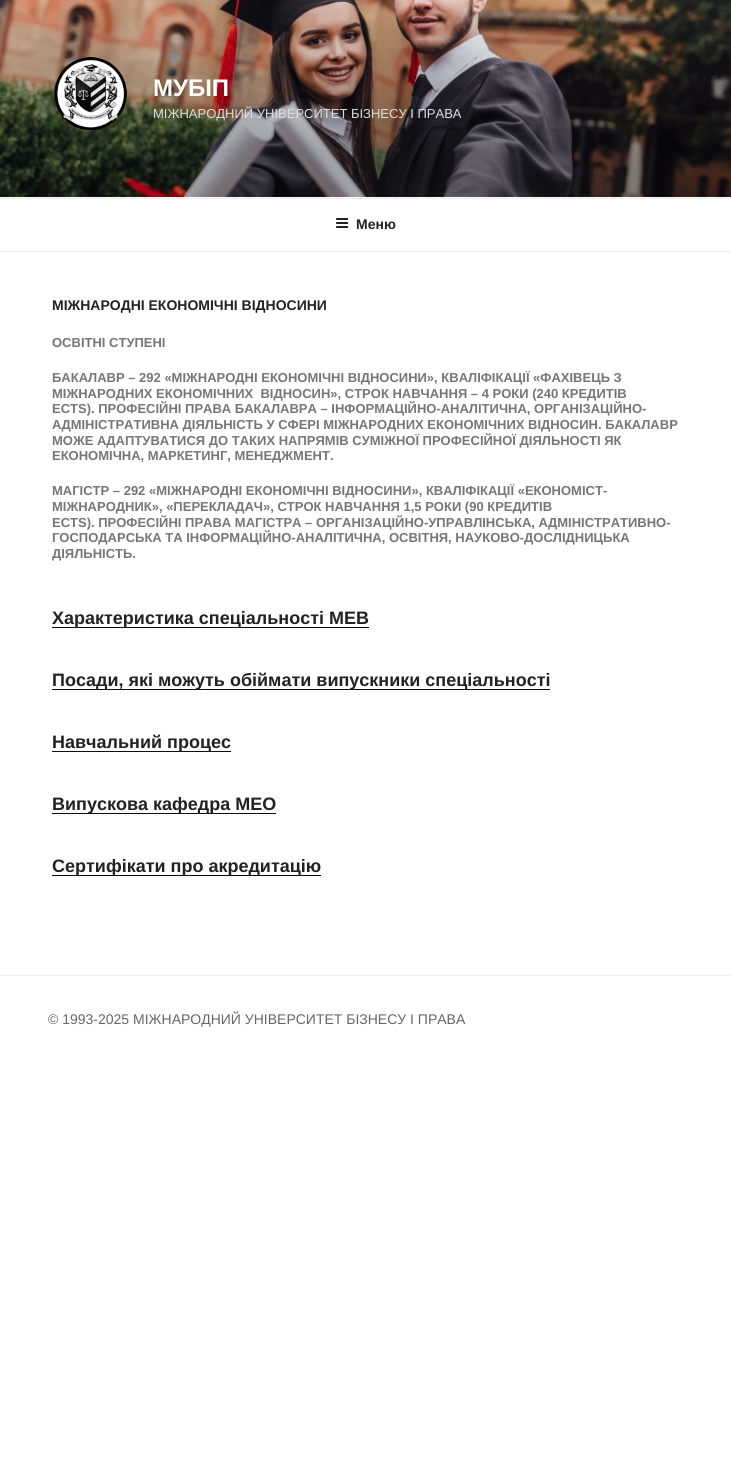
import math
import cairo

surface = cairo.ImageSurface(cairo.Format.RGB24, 731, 1462)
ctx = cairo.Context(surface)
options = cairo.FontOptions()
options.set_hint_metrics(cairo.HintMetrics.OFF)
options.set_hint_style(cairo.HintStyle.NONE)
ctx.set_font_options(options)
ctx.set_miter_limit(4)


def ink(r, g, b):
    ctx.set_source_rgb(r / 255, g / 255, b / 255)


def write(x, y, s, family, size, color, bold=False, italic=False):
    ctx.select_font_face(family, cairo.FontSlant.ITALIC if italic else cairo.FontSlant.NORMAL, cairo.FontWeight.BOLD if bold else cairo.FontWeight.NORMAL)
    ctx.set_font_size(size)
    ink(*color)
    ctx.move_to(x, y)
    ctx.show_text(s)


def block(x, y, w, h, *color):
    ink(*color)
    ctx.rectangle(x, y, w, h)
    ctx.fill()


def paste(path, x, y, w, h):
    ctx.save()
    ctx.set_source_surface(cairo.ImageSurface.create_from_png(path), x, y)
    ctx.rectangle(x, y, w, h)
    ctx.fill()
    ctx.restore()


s1 = dict(family="Liberation Sans", size=24, color=(255, 255, 255), bold=True)
s2 = dict(family="Liberation Sans", size=13, color=(222, 220, 219))
s3 = dict(family="Liberation Sans", size=14, color=(34, 34, 34), bold=True)
s4 = dict(family="Liberation Sans", size=13, color=(118, 118, 118), bold=True)
s5 = dict(family="Liberation Sans", size=18, color=(34, 34, 34), bold=True)
s6 = dict(family="Liberation Sans", size=14, color=(102, 102, 102))

ink(255, 255, 255)
ctx.paint()
block(0, 197, 731, 1, 250, 250, 250)
paste("pic1.png", 0, 0, 731, 197)
paste("pic2.png", 54, 57, 73, 74)
write(153, 96, "МУБІП", **s1)
write(153, 118, "МІЖНАРОДНИЙ УНІВЕРСИТЕТ БІЗНЕСУ І ПРАВА", **s2)
block(0, 198, 731, 1, 238, 238, 238)
block(0, 251, 731, 1, 238, 238, 238)
paste("pic3.png", 336, 218, 13, 10)
write(356, 229, "Меню", **s3)
write(52, 310, "МІЖНАРОДНІ ЕКОНОМІЧНІ ВІДНОСИНИ", **s3)
write(52, 347, "ОСВІТНІ СТУПЕНІ", **s4)
write(52, 382, "БАКАЛАВР – 292 «МІЖНАРОДНІ ЕКОНОМІЧНІ ВІДНОСИНИ», КВАЛІФІКАЦІЇ «ФАХІВЕЦЬ З", **s4)
write(52, 398, "МІЖНАРОДНИХ ЕКОНОМІЧНИХ  ВІДНОСИН», СТРОК НАВЧАННЯ – 4 РОКИ (240 КРЕДИТІВ", **s4)
write(52, 413, "ECTS). ПРОФЕСІЙНІ ПРАВА БАКАЛАВРА – ІНФОРМАЦІЙНО-АНАЛІТИЧНА, ОРГАНІЗАЦІЙНО-", **s4)
write(52, 429, "АДМІНІСТРАТИВНА ДІЯЛЬНІСТЬ У СФЕРІ МІЖНАРОДНИХ ЕКОНОМІЧНИХ ВІДНОСИН. БАКАЛАВР", **s4)
write(52, 445, "МОЖЕ АДАПТУВАТИСЯ ДО ТАКИХ НАПРЯМІВ СУМІЖНОЇ ПРОФЕСІЙНОЇ ДІЯЛЬНОСТІ ЯК", **s4)
write(52, 460, "ЕКОНОМІЧНА, МАРКЕТИНГ, МЕНЕДЖМЕНТ.", **s4)
write(52, 495, "МАГІСТР – 292 «МІЖНАРОДНІ ЕКОНОМІЧНІ ВІДНОСИНИ», КВАЛІФІКАЦІЇ «ЕКОНОМІСТ-", **s4)
write(52, 511, "МІЖНАРОДНИК», «ПЕРЕКЛАДАЧ», СТРОК НАВЧАННЯ 1,5 РОКИ (90 КРЕДИТІВ", **s4)
write(52, 527, "ECTS). ПРОФЕСІЙНІ ПРАВА МАГІСТРА – ОРГАНІЗАЦІЙНО-УПРАВЛІНСЬКА, АДМІНІСТРАТИВНО-", **s4)
write(52, 542, "ГОСПОДАРСЬКА ТА ІНФОРМАЦІЙНО-АНАЛІТИЧНА, ОСВІТНЯ, НАУКОВО-ДОСЛІДНИЦЬКА", **s4)
write(52, 558, "ДІЯЛЬНІСТЬ.", **s4)
block(52, 627, 317, 1, 15, 15, 15)
write(52, 624, "Характеристика спеціальності МЕВ", **s5)
block(52, 689, 498, 1, 15, 15, 15)
write(52, 686, "Посади, які можуть обіймати випускники спеціальності", **s5)
block(52, 751, 179, 1, 15, 15, 15)
write(52, 748, "Навчальний процес", **s5)
block(52, 813, 224, 1, 15, 15, 15)
write(52, 810, "Випускова кафедра МЕО", **s5)
block(52, 875, 269, 1, 15, 15, 15)
write(52, 872, "Сертифікати про акредитацію", **s5)
block(0, 975, 731, 1, 238, 238, 238)
write(48, 1024, "© 1993-2025 МІЖНАРОДНИЙ УНІВЕРСИТЕТ БІЗНЕСУ І ПРАВА", **s6)
surface.write_to_png("screenshot.png")
